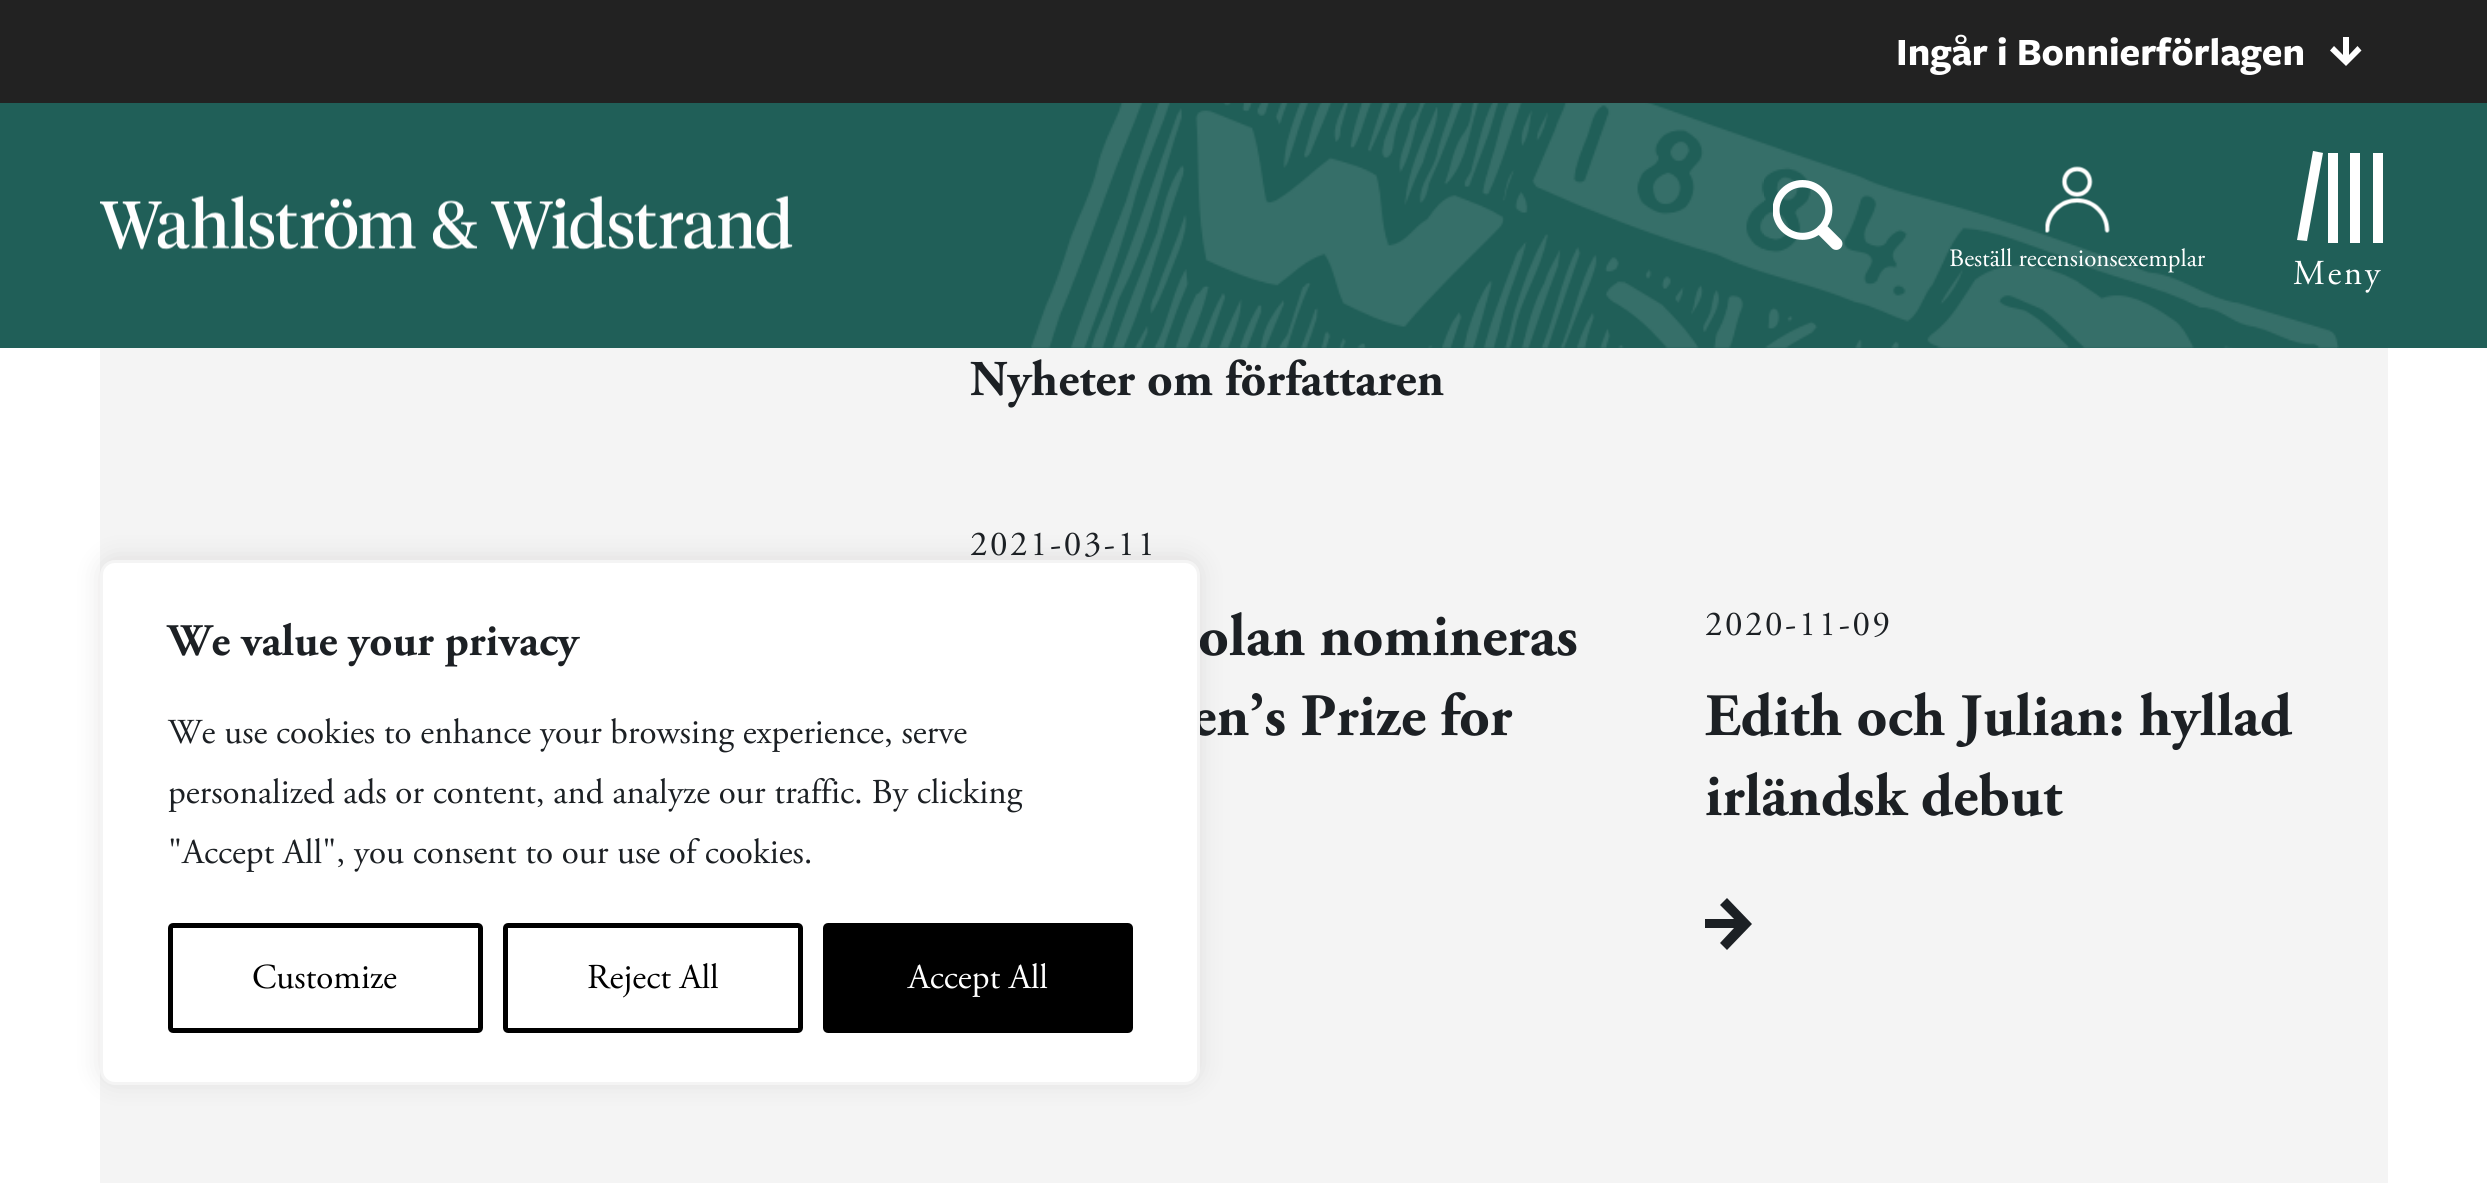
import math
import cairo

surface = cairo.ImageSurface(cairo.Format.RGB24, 2487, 1183)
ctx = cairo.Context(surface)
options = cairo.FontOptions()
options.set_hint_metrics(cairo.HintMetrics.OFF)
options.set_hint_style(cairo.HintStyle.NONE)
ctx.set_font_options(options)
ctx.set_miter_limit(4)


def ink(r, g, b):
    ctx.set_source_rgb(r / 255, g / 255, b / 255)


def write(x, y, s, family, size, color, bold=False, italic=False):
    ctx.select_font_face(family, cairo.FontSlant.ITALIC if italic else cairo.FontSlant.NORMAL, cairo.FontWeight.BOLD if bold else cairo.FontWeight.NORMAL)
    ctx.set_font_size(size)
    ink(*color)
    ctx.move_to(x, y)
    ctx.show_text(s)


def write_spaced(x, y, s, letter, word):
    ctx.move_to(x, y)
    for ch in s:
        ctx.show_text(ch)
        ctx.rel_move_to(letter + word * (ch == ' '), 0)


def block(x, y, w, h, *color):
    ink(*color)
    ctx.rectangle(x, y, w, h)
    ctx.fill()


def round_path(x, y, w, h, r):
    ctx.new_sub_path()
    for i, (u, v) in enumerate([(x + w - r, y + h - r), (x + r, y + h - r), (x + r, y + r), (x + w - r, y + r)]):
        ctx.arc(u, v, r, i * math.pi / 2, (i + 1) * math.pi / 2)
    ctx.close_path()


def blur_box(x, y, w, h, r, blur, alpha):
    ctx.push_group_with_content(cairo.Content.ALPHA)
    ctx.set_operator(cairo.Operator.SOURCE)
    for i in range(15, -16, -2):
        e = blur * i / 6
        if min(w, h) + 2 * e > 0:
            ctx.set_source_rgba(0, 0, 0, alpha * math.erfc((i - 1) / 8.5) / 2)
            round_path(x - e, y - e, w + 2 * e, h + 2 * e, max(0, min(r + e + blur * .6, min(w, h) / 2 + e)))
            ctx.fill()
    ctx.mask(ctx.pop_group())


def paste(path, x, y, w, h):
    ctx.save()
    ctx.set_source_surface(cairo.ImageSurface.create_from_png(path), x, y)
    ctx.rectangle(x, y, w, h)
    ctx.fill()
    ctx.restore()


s1 = dict(family="Adobe Garamond", size=60, color=(28, 32, 36), bold=True)
s2 = dict(family="Adobe Garamond", size=45, color=(28, 32, 36), bold=True)
s3 = dict(family="Adobe Garamond", size=35, color=(28, 32, 36))
s4 = dict(family="Adobe Garamond", size=35, color=(0, 0, 0))
s5 = dict(family="Adobe Garamond", size=35, color=(255, 255, 255))
s6 = dict(family="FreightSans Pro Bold", size=40, color=(255, 255, 255), bold=True)
s7 = dict(family="Adobe Garamond", size=25, color=(255, 255, 255))
s8 = dict(family="Adobe Garamond", size=50, color=(28, 32, 36), bold=True)

ink(255, 255, 255)
ctx.paint()
block(100, 348, 2288, 835, 244, 244, 244)
ink(172, 171, 171)
blur_box(100, 558, 1100, 525, 15, 12.5, 0.3)
write(1198, 655, "olan nomineras", **s1)
write(1191, 735, "en’s Prize for", **s1)
ink(255, 255, 255)
round_path(101.5, 561.5, 1097, 522, 13.5)
ctx.fill_preserve()
ink(244, 244, 244)
ctx.set_line_width(3)
ctx.stroke()
write(168, 655, "We value your privacy", **s2)
write(168, 743, "We use cookies to enhance your browsing experience, serve", **s3)
write(168, 803, "personalized ads or content, and analyze our traffic. By clicking", **s3)
write(168, 863, "\"Accept All\", you consent to our use of cookies.", **s3)
round_path(170.5, 925.5, 310, 105, 2.5)
ink(0, 0, 0)
ctx.set_line_width(5)
ctx.stroke()
write(252, 988, "Customize", **s4)
round_path(505.5, 925.5, 295, 105, 2.5)
ctx.stroke()
write(587, 988, "Reject All", **s4)
round_path(825.5, 925.5, 305, 105, 2.5)
ctx.fill_preserve()
ctx.stroke()
write(908, 988, "Accept All", **s5)
block(0, 0, 2487, 103, 34, 34, 34)
write(1896, 65, "Ingår i Bonnierförlagen", **s6)
ctx.set_fill_rule(cairo.FillRule.EVEN_ODD)
ctx.new_path()
ctx.move_to(2330, 50.5)
ctx.line_to(2346, 66)
ctx.line_to(2361.5, 50.5)
ctx.line_to(2357.5, 46)
ctx.line_to(2349, 55)
ctx.line_to(2349, 37)
ctx.line_to(2343, 37)
ctx.line_to(2343, 55)
ctx.line_to(2334, 46)
ctx.close_path()
ctx.fill()
block(0, 103, 2487, 245, 32, 95, 88)
paste("pic1.png", 1031, 103, 1308, 245)
paste("pic2.png", 100, 195, 693, 55)
paste("pic3.png", 1773, 180, 70, 70)
paste("pic4.png", 2045, 166, 65, 67)
write(1949, 266, "Beställ recensionsexemplar", **s7)
ctx.set_fill_rule(cairo.FillRule.WINDING)
ctx.new_path()
ctx.move_to(2313, 151)
ctx.line_to(2323, 153)
ctx.line_to(2307, 241)
ctx.line_to(2297, 240)
ctx.close_path()
ctx.fill()
block(2328, 153, 10, 90, 255, 255, 255)
block(2350, 153, 10, 90, 255, 255, 255)
block(2373, 153, 10, 90, 255, 255, 255)
ctx.set_font_size(35)
write_spaced(2293, 284, "Meny", 2.5, 0)
paste("pic5.png", 1032, 347, 1305, 1)
write(970, 395, "Nyheter om författaren", **s8)
ctx.select_font_face("Adobe Garamond")
ctx.set_font_size(35)
write_spaced(970, 555, "2021-03-11", 2.5, 0)
write_spaced(1705, 635, "2020-11-09", 2.5, 0)
write(1705, 735, "Edith och Julian: hyllad", **s1)
write(1705, 815, "irländsk debut", **s1)
ctx.set_fill_rule(cairo.FillRule.EVEN_ODD)
ctx.new_path()
ctx.move_to(1727, 950)
ctx.line_to(1752, 924)
ctx.line_to(1727, 898)
ctx.line_to(1720, 905)
ctx.line_to(1734, 919)
ctx.line_to(1705, 919)
ctx.line_to(1705, 928)
ctx.line_to(1734, 928)
ctx.line_to(1720, 943)
ctx.close_path()
ctx.fill()
surface.write_to_png("screenshot.png")
